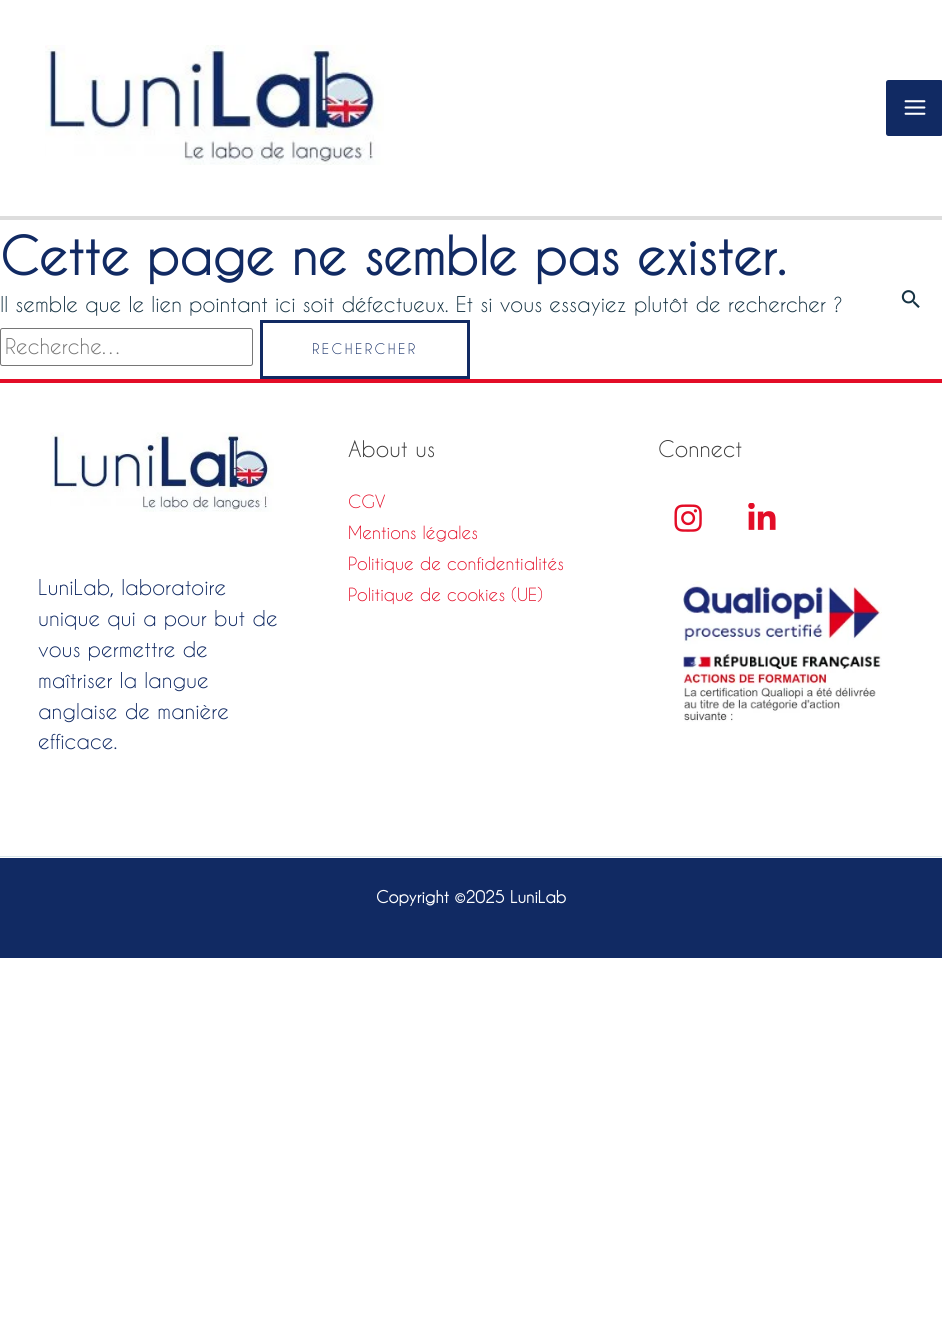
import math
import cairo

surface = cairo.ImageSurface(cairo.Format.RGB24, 942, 1317)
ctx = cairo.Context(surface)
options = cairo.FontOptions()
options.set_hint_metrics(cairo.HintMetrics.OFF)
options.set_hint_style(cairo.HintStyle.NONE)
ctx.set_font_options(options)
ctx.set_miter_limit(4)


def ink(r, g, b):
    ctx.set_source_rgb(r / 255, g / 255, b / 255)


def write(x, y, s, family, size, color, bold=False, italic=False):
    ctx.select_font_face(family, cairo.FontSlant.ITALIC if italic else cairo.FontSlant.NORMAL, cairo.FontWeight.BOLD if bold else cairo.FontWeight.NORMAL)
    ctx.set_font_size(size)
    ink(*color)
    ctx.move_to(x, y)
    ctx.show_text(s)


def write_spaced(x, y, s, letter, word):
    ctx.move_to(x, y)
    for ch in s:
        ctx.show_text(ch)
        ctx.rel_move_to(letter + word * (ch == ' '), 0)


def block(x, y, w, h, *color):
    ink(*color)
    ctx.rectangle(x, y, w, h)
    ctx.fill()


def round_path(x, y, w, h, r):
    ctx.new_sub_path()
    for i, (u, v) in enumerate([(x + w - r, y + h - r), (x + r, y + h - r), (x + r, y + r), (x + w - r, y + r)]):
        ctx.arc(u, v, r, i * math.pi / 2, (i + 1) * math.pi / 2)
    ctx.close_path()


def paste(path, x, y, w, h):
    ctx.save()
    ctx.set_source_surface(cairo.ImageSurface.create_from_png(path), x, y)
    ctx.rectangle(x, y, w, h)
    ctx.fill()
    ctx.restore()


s1 = dict(family="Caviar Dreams", size=50, color=(17, 42, 99), bold=True)
s2 = dict(family="Caviar Dreams", size=20.5, color=(21, 50, 67))
s3 = dict(family="Caviar Dreams", size=20.5, color=(117, 117, 117))
s4 = dict(family="Caviar Dreams", size=21.5, color=(58, 58, 58))
s5 = dict(family="Caviar Dreams", size=17.1, color=(227, 13, 39))
s6 = dict(family="Caviar Dreams", size=20.5, color=(17, 42, 99))
s7 = dict(family="Caviar Dreams", size=16, color=(255, 255, 255), bold=True)

ink(255, 255, 255)
ctx.paint()
block(0, 216, 942, 4, 221, 221, 221)
paste("pic1.png", 45, 45, 339, 120)
ink(17, 42, 99)
round_path(886, 80, 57, 56, 2.5)
ctx.fill()
paste("pic2.png", 904, 100, 22, 15)
write(0, 275, "Cette page ne semble pas exister.", **s1)
write(0, 312, "Il semble que le lien pointant ici soit défectueux. Et si vous essayiez plutôt de rechercher ?", **s2)
paste("pic3.png", 901, 290, 19, 18)
round_path(0.5, 328.5, 252, 37, 2)
ink(118, 118, 118)
ctx.set_line_width(1)
ctx.stroke()
write(5, 354, "Recherche…", **s3)
ctx.rectangle(261.5, 321.5, 207, 56)
ink(17, 42, 99)
ctx.set_line_width(3)
ctx.stroke()
ctx.set_font_size(13.75)
write_spaced(312, 354, "RECHERCHER", 2.5, 0)
block(0, 379, 942, 4, 227, 13, 39)
write(348, 457, "About us", **s4)
write(348, 508, "CGV", **s5)
write(348, 539, "Mentions légales", **s5)
write(348, 570, "Politique de confidentialités", **s5)
write(348, 601, "Politique de cookies (UE)", **s5)
write(658, 457, "Connect", **s4)
paste("pic4.png", 674, 504, 28, 28)
paste("pic5.png", 748, 503, 28, 27)
paste("pic6.png", 683, 581, 199, 141)
paste("pic7.png", 50, 432, 224, 80)
write(38, 595, "LuniLab, laboratoire", **s6)
write(38, 626, "unique qui a pour but de", **s6)
write(38, 657, "vous permettre de", **s6)
write(38, 688, "maîtriser la langue", **s6)
write(38, 719, "anglaise de manière", **s6)
write(38, 749, "efficace.", **s6)
block(0, 858, 942, 100, 17, 42, 99)
block(0, 856, 942, 1, 219, 232, 235)
write(376, 903, "Copyright ©2025 LuniLab", **s7)
surface.write_to_png("screenshot.png")
